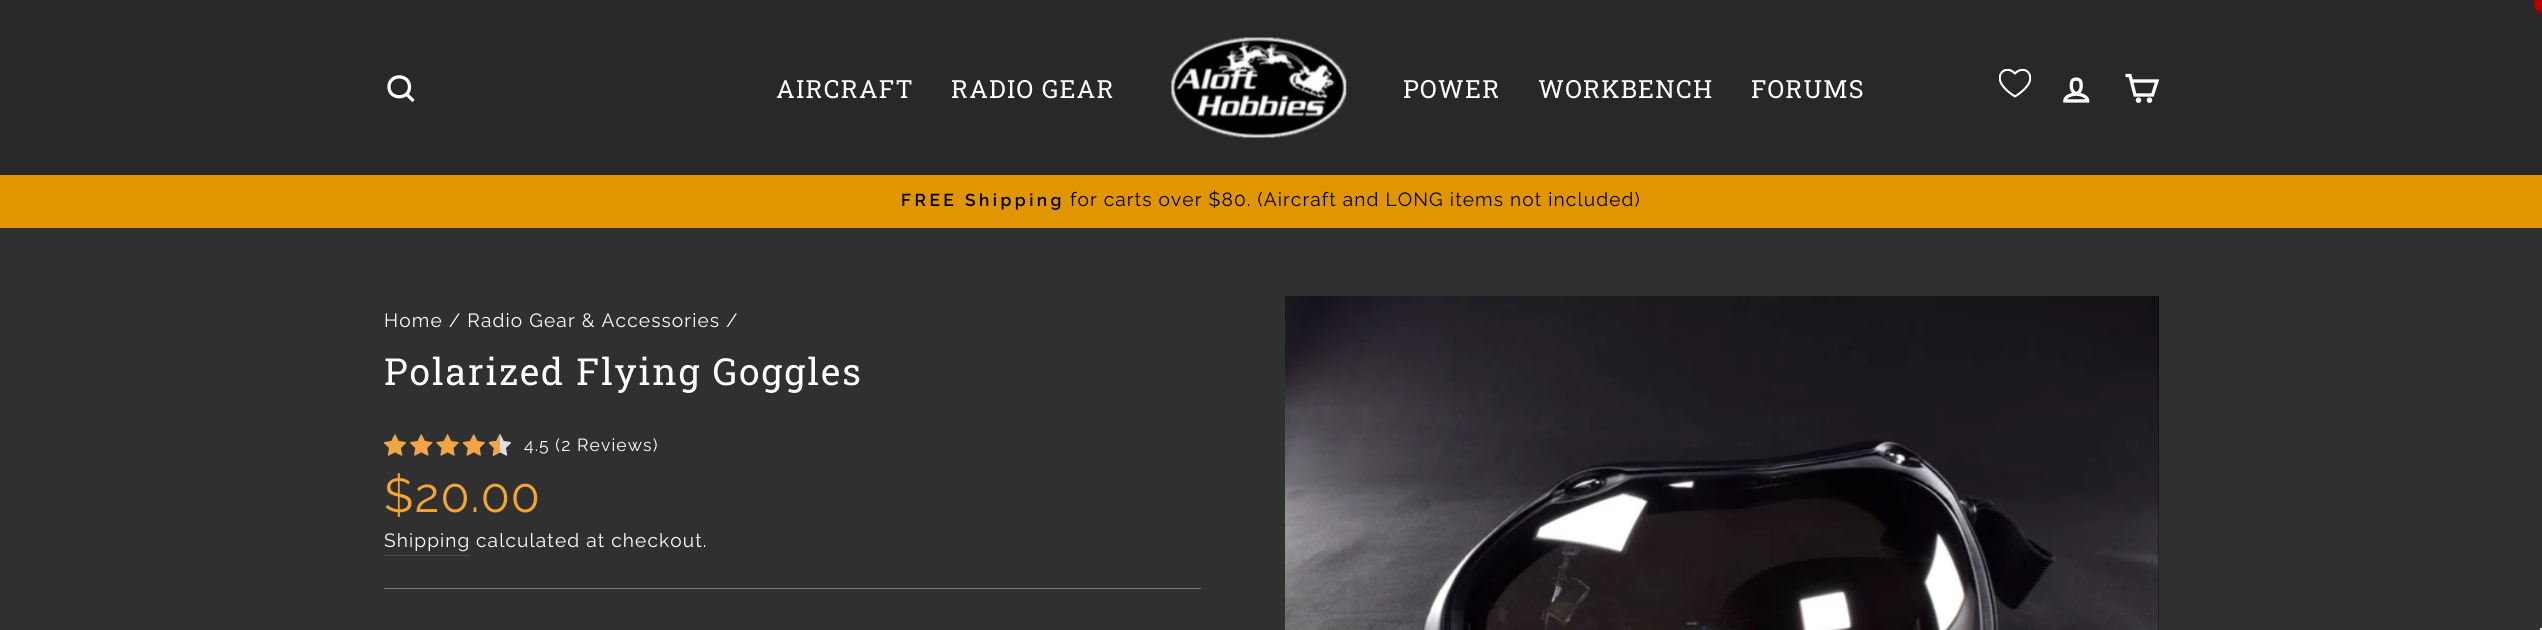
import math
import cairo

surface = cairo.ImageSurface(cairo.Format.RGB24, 2542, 630)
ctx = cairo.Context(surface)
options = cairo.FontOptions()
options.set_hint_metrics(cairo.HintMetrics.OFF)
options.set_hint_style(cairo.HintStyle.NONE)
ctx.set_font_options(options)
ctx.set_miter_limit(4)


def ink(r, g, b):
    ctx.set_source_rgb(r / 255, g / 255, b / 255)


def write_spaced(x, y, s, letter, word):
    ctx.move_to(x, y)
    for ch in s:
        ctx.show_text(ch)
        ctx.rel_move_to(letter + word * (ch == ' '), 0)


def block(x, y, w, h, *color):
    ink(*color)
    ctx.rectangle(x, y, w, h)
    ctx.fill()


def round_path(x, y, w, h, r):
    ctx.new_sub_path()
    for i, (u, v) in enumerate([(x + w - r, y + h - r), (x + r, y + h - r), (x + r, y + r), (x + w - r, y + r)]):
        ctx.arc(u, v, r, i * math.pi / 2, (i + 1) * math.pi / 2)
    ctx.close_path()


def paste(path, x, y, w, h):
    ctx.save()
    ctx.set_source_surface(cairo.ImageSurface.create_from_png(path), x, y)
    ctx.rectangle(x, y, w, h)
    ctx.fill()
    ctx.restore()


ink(48, 48, 48)
ctx.paint()
block(0, 0, 2542, 175, 40, 40, 40)
ctx.new_path()
ctx.move_to(409.5, 87)
ctx.curve_to(409.5, 100, 389, 100, 389, 87)
ctx.curve_to(389, 73.5, 409.5, 73.5, 409.5, 87)
ctx.close_path()
ctx.move_to(413.5, 101)
ctx.line_to(406.5, 94)
ink(255, 255, 255)
ctx.set_line_width(3.3)
ctx.stroke()
ctx.select_font_face("Roboto Slab")
ctx.set_font_size(25)
write_spaced(776, 98, "AIRCRAFT", 1.25, 0)
write_spaced(951, 98, "RADIO GEAR", 1.25, 0)
paste("pic1.png", 1171, 37, 176, 101)
write_spaced(1403, 98, "POWER", 1.25, 0)
write_spaced(1538, 98, "WORKBENCH", 1.25, 0)
write_spaced(1751, 98, "FORUMS", 1.25, 0)
ink(179, 0, 0)
round_path(2534, -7, 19, 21, 10.5)
ctx.fill()
paste("pic2.png", 1999, 69, 32, 29)
paste("pic3.png", 2063, 77, 27, 26)
ctx.new_path()
ctx.move_to(2131.5, 81)
ctx.line_to(2157, 81)
ctx.line_to(2152.5, 95)
ctx.line_to(2135, 95)
ctx.line_to(2130, 75.5)
ctx.line_to(2125.5, 75.5)
ink(255, 255, 255)
ctx.stroke()
ctx.arc(2138.5, 100.2, 1.1, 0, 2 * math.pi)
ctx.fill_preserve()
ctx.stroke()
ctx.arc(2149.5, 100.2, 1.1, 0, 2 * math.pi)
ctx.fill_preserve()
ctx.stroke()
block(0, 175, 2542, 53, 223, 150, 0)
ctx.select_font_face("Raleway SemiBold")
ctx.set_font_size(17.25)
ink(0, 0, 0)
write_spaced(901, 206, "FREE Shipping", 3.5, 0)
ctx.select_font_face("Raleway")
ctx.set_font_size(19.1)
write_spaced(1070, 206, "for carts over $80. (Aircraft and LONG items not included)", 1.12, 0)
ink(255, 255, 255)
write_spaced(384, 327, "Home / Radio Gear & Accessories /", 1.12, 0)
ctx.select_font_face("Roboto Slab")
ctx.set_font_size(37.25)
write_spaced(384, 385, "Polarized Flying Goggles", 1.9, 0)
paste("pic4.png", 384, 434, 22, 22)
paste("pic5.png", 410, 434, 23, 22)
paste("pic6.png", 436, 434, 23, 22)
paste("pic7.png", 463, 434, 22, 22)
paste("pic8.png", 489, 434, 22, 22)
paste("pic9.png", 489, 434, 11, 22)
ctx.select_font_face("Raleway")
ctx.set_font_size(17.5)
write_spaced(524, 451, "4.5 (2 Reviews)", 1.12, 0)
ctx.set_font_size(47.5)
ink(242, 165, 53)
write_spaced(384, 512, "$20.00", 1.12, 0)
block(384, 555, 86, 1, 79, 79, 79)
ctx.set_font_size(19.1)
ink(255, 255, 255)
write_spaced(384, 547, "Shipping", 1.12, 0)
write_spaced(476, 547, "calculated at checkout.", 1.12, 0)
block(384, 588, 817, 1, 121, 121, 121)
block(1285, 296, 874, 334, 0, 0, 0)
paste("pic10.png", 1285, 296, 874, 334)
block(2540, 628, 2, 2, 245, 245, 245)
surface.write_to_png("screenshot.png")
